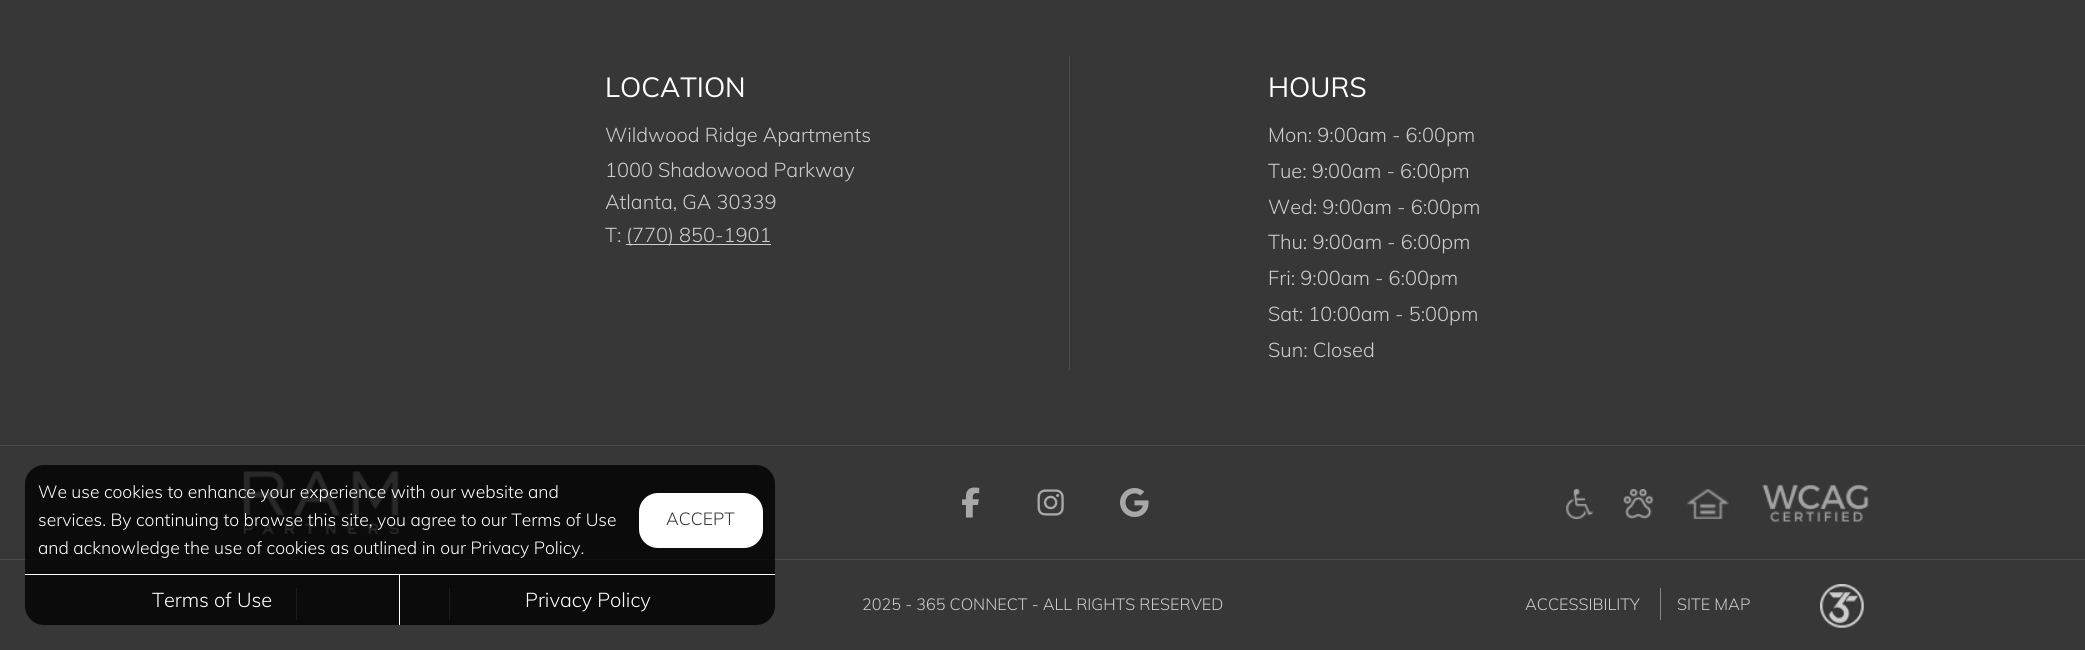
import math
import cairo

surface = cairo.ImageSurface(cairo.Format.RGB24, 2085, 650)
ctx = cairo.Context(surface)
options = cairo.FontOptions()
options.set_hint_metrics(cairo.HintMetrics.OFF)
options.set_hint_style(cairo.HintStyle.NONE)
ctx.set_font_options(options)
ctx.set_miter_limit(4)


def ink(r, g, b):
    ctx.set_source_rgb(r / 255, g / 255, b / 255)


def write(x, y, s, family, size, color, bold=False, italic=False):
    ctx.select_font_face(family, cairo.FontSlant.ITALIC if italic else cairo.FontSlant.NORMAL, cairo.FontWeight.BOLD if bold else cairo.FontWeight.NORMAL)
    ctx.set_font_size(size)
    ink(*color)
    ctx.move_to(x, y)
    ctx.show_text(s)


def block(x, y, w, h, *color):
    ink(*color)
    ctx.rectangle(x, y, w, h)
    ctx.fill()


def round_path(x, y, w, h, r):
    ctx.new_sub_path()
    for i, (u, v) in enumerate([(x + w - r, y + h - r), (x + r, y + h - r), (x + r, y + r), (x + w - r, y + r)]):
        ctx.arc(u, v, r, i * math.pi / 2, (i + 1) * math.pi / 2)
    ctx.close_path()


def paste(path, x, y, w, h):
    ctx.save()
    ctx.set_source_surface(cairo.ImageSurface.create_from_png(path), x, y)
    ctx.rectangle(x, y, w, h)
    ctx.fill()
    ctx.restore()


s1 = dict(family="Muli Light", size=17.5, color=(255, 255, 255))
s2 = dict(family="Muli Light", size=17.5, color=(51, 51, 51))
s3 = dict(family="Muli Light", size=20, color=(255, 255, 255))
s4 = dict(family="Muli", size=27.5, color=(255, 255, 255))
s5 = dict(family="Muli Light", size=20, color=(205, 205, 205))
s6 = dict(family="Muli Light", size=16.25, color=(205, 205, 205))

ink(55, 55, 55)
ctx.paint()
paste("pic1.png", 243, 471, 156, 63)
block(0, 559, 2085, 1, 75, 75, 75)
block(296, 588, 1, 32, 135, 135, 135)
block(449, 588, 1, 32, 135, 135, 135)
ctx.set_source_rgba(0, 0, 0, 0.8)
round_path(25, 465, 750, 160, 19)
ctx.fill()
write(38, 498, "We use cookies to enhance your experience with our website and", **s1)
write(38, 526, "services. By continuing to browse this site, you agree to our Terms of Use", **s1)
write(38, 554, "and acknowledge the use of cookies as outlined in our Privacy Policy.", **s1)
round_path(639, 493, 124, 55, 19)
ctx.fill()
write(666, 525, "ACCEPT", **s2)
block(25, 574, 750, 1, 255, 255, 255)
block(399, 575, 1, 50, 255, 255, 255)
write(152, 607, "Terms of Use", **s3)
write(525, 607, "Privacy Policy", **s3)
write(605, 97, "LOCATION", **s4)
write(605, 142, "Wildwood Ridge Apartments", **s5)
write(605, 177, "1000 Shadowood Parkway", **s5)
write(605, 209, "Atlanta, GA 30339", **s5)
write(605, 242, "T:", **s5)
block(626, 244, 145, 1, 205, 205, 205)
write(626, 242, "(770) 850-1901", **s5)
block(1069, 56, 1, 314, 75, 75, 75)
write(1268, 97, "HOURS", **s4)
write(1268, 142, "Mon: 9:00am - 6:00pm", **s5)
write(1268, 178, "Tue: 9:00am - 6:00pm", **s5)
write(1268, 214, "Wed: 9:00am - 6:00pm", **s5)
write(1268, 249, "Thu: 9:00am - 6:00pm", **s5)
write(1268, 285, "Fri: 9:00am - 6:00pm", **s5)
write(1268, 321, "Sat: 10:00am - 5:00pm", **s5)
write(1268, 357, "Sun: Closed", **s5)
block(0, 445, 2085, 1, 75, 75, 75)
paste("pic2.png", 962, 487, 18, 31)
paste("pic3.png", 1037, 489, 27, 27)
paste("pic4.png", 1120, 488, 29, 29)
paste("pic5.png", 1566, 489, 27, 30)
paste("pic6.png", 1623, 489, 31, 30)
paste("pic7.png", 1686, 489, 43, 30)
paste("pic8.png", 1762, 484, 107, 38)
write(862, 610, "2025 - 365 CONNECT - ALL RIGHTS RESERVED", **s6)
write(1525, 610, "ACCESSIBILITY", **s6)
write(1677, 610, "SITE MAP", **s6)
block(1660, 588, 1, 32, 135, 135, 135)
paste("pic9.png", 1820, 584, 44, 44)
surface.write_to_png("screenshot.png")
